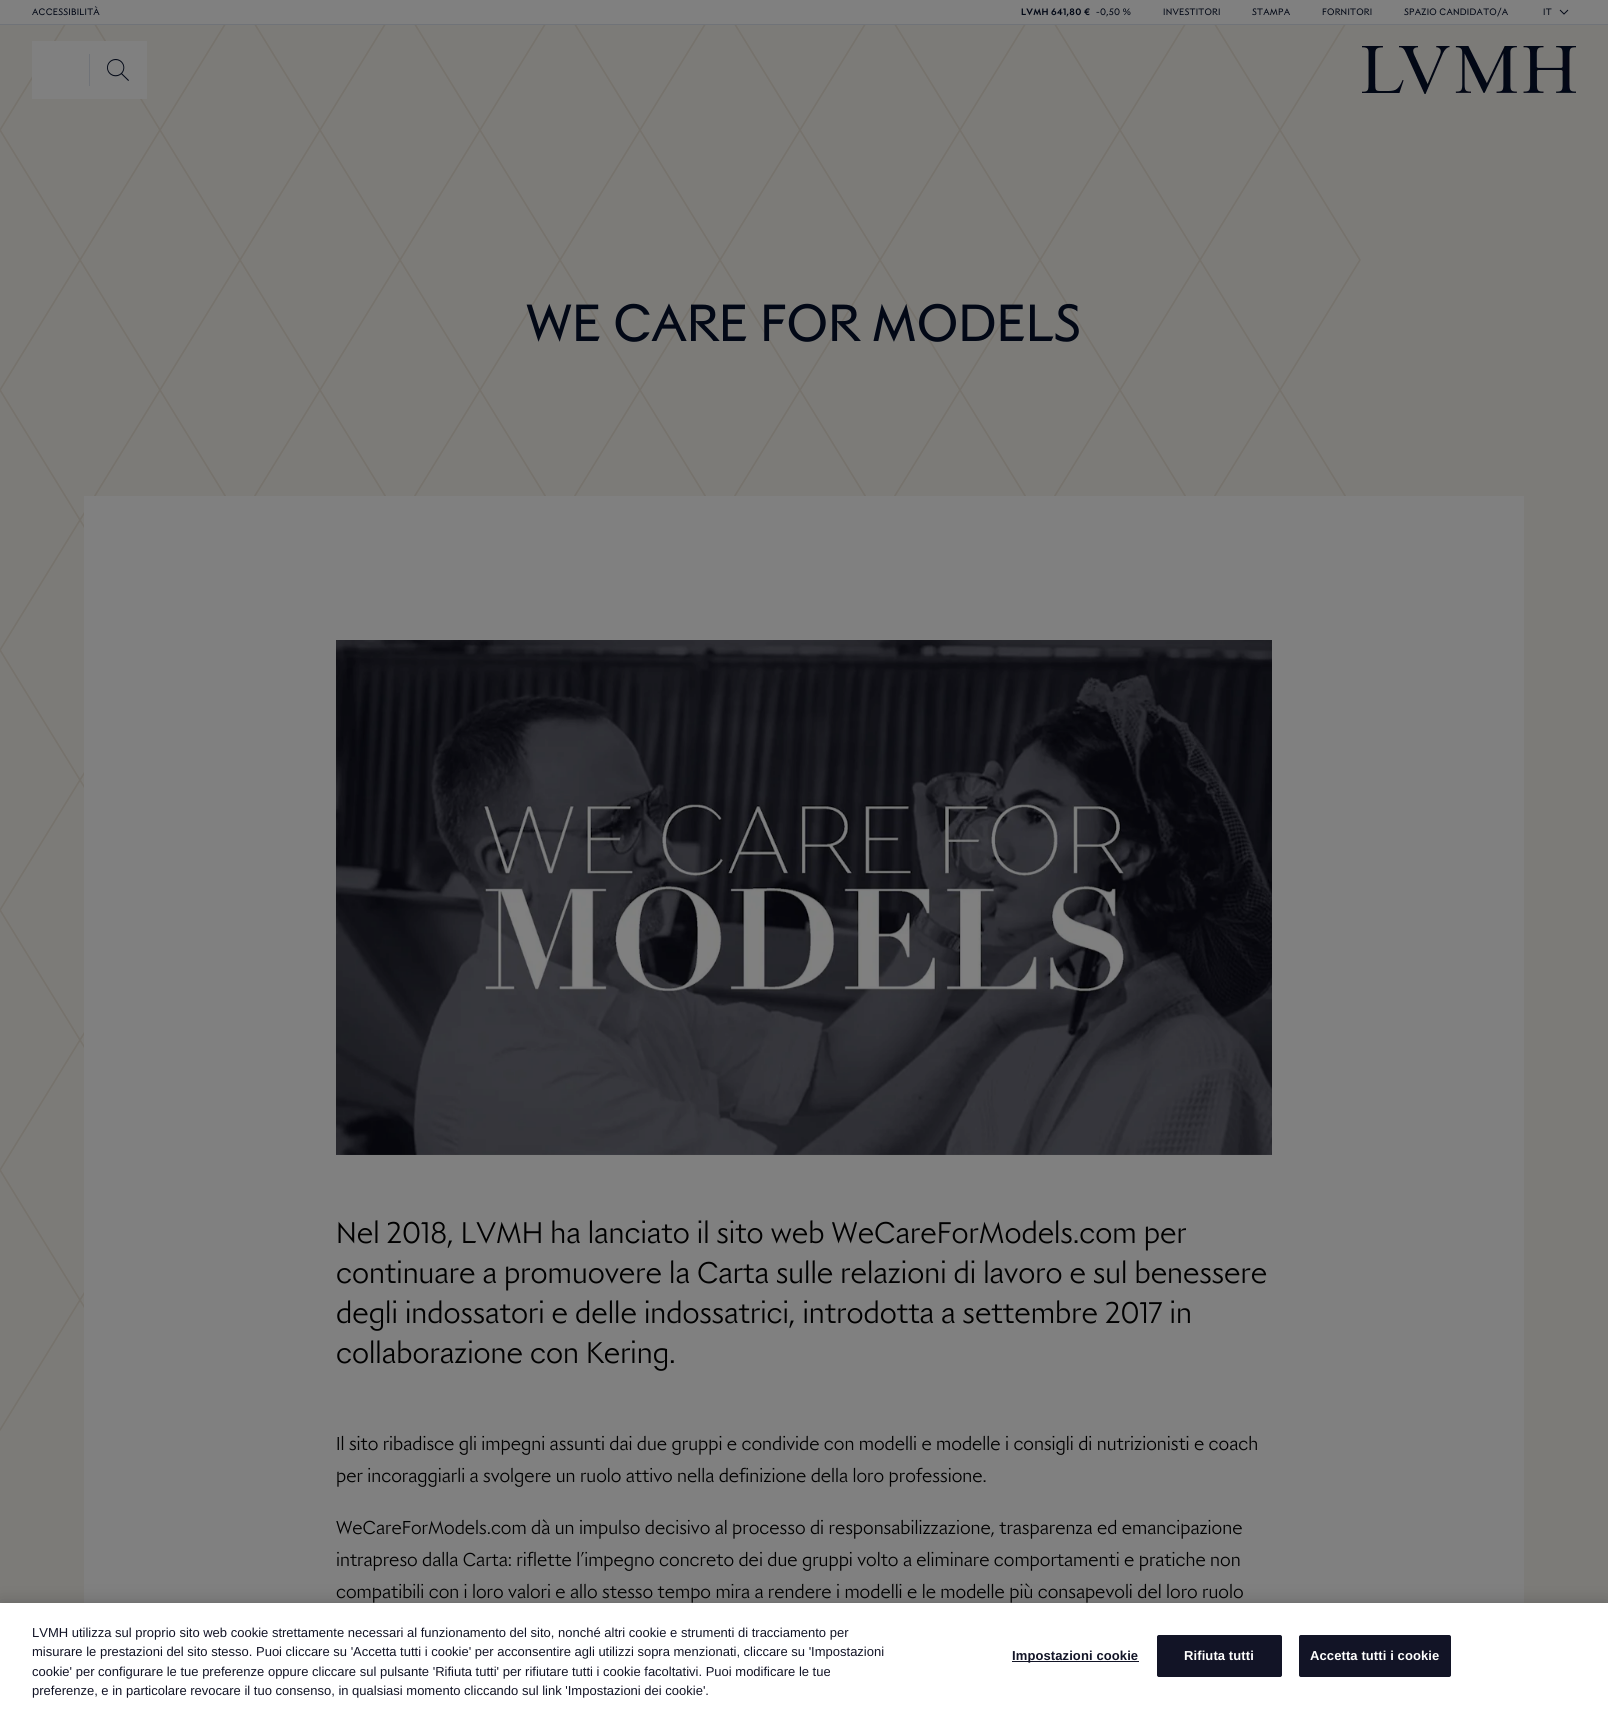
import math
import cairo

surface = cairo.ImageSurface(cairo.Format.RGB24, 1608, 1711)
ctx = cairo.Context(surface)
options = cairo.FontOptions()
options.set_hint_metrics(cairo.HintMetrics.OFF)
options.set_hint_style(cairo.HintStyle.NONE)
ctx.set_font_options(options)
ctx.set_miter_limit(4)


def ink(r, g, b):
    ctx.set_source_rgb(r / 255, g / 255, b / 255)


def write(x, y, s, family, size, color, bold=False, italic=False):
    ctx.select_font_face(family, cairo.FontSlant.ITALIC if italic else cairo.FontSlant.NORMAL, cairo.FontWeight.BOLD if bold else cairo.FontWeight.NORMAL)
    ctx.set_font_size(size)
    ink(*color)
    ctx.move_to(x, y)
    ctx.show_text(s)


def write_spaced(x, y, s, letter, word):
    ctx.move_to(x, y)
    for ch in s:
        ctx.show_text(ch)
        ctx.rel_move_to(letter + word * (ch == ' '), 0)


def block(x, y, w, h, *color):
    ink(*color)
    ctx.rectangle(x, y, w, h)
    ctx.fill()


def round_path(x, y, w, h, r):
    ctx.new_sub_path()
    for i, (u, v) in enumerate([(x + w - r, y + h - r), (x + r, y + h - r), (x + r, y + r), (x + w - r, y + r)]):
        ctx.arc(u, v, r, i * math.pi / 2, (i + 1) * math.pi / 2)
    ctx.close_path()


def blur_box(x, y, w, h, r, blur, alpha):
    ctx.push_group_with_content(cairo.Content.ALPHA)
    ctx.set_operator(cairo.Operator.SOURCE)
    for i in range(15, -16, -2):
        e = blur * i / 6
        if min(w, h) + 2 * e > 0:
            ctx.set_source_rgba(0, 0, 0, alpha * math.erfc((i - 1) / 8.5) / 2)
            round_path(x - e, y - e, w + 2 * e, h + 2 * e, max(0, min(r + e + blur * .6, min(w, h) / 2 + e)))
            ctx.fill()
    ctx.mask(ctx.pop_group())


def paste(path, x, y, w, h):
    ctx.save()
    ctx.set_source_surface(cairo.ImageSurface.create_from_png(path), x, y)
    ctx.rectangle(x, y, w, h)
    ctx.fill()
    ctx.restore()


s1 = dict(family="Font", size=56, color=(2, 8, 22))
s2 = dict(family="Font Light", size=32, color=(0, 0, 0))
s3 = dict(family="Font Light", size=20, color=(0, 0, 0))
s4 = dict(family="Liberation Sans", size=13, color=(18, 20, 38))

ink(124, 123, 120)
ctx.paint()
block(0, 0, 1608, 24, 128, 128, 128)
block(0, 24, 1608, 1, 112, 115, 120)
ctx.select_font_face("Font")
ctx.set_font_size(10)
ink(2, 8, 22)
write_spaced(32, 15, "ACCESSIBILITÀ", 0.25, 0)
ctx.select_font_face("Font", cairo.FontSlant.NORMAL, cairo.FontWeight.BOLD)
write_spaced(1021, 15, "LVMH 641,80 €", 0.25, 0)
ctx.select_font_face("Font")
write_spaced(1096, 15, "-0,50 %", 0.25, 0)
write_spaced(1163, 15, "INVESTITORI", 0.25, 0)
write_spaced(1252, 15, "STAMPA", 0.25, 0)
write_spaced(1322, 15, "FORNITORI", 0.25, 0)
write_spaced(1404, 15, "SPAZIO CANDIDATO/A", 0.25, 0)
write_spaced(1543, 15, "IT", 0.25, 0)
paste("pic1.png", 1559, 9, 10, 6)
paste("pic5.png", 0, 25, 1361, 1406)
block(33, 42, 113, 56, 128, 128, 128)
block(32, 41, 115, 1, 128, 128, 128)
block(32, 98, 58, 1, 128, 128, 128)
block(32, 41, 1, 58, 128, 128, 128)
block(89, 54, 1, 32, 112, 115, 120)
block(146, 41, 1, 58, 128, 128, 128)
block(90, 98, 57, 1, 128, 128, 128)
paste("pic2.png", 107, 59, 22, 22)
paste("pic3.png", 1362, 46, 214, 48)
write(526, 341, "WE CARE FOR MODELS", **s1)
block(84, 496, 1440, 1107, 128, 128, 128)
paste("pic4.png", 336, 640, 936, 515)
write(336, 1243, "Nel 2018, LVMH ha lanciato il sito web WeCareForModels.com per", **s2)
write(336, 1283, "continuare a promuovere la Carta sulle relazioni di lavoro e sul benessere", **s2)
write(336, 1323, "degli indossatori e delle indossatrici, introdotta a settembre 2017 in", **s2)
write(336, 1363, "collaborazione con Kering.", **s2)
write(336, 1450, "Il sito ribadisce gli impegni assunti dai due gruppi e condivide con modelli e modelle i consigli di nutrizionisti e coach", **s3)
write(336, 1482, "per incoraggiarli a svolgere un ruolo attivo nella definizione della loro professione.", **s3)
write(336, 1534, "WeCareForModels.com dà un impulso decisivo al processo di responsabilizzazione, trasparenza ed emancipazione", **s3)
write(336, 1566, "intrapreso dalla Carta: riflette l’impegno concreto dei due gruppi volto a eliminare comportamenti e pratiche non", **s3)
write(336, 1598, "compatibili con i loro valori e allo stesso tempo mira a rendere i modelli e le modelle più consapevoli del loro ruolo", **s3)
ink(0, 0, 0)
blur_box(0, 1603, 1608, 108, 0, 9, 0.2)
block(0, 1603, 1608, 108, 255, 255, 255)
write(32, 1637, "LVMH utilizza sul proprio sito web cookie strettamente necessari al funzionamento del sito, nonché altri cookie e strumenti di tracciamento per", **s4)
write(32, 1656, "misurare le prestazioni del sito stesso. Puoi cliccare su 'Accetta tutti i cookie' per acconsentire agli utilizzi sopra menzionati, cliccare su 'Impostazioni", **s4)
write(32, 1676, "cookie' per configurare le tue preferenze oppure cliccare sul pulsante 'Rifiuta tutti' per rifiutare tutti i cookie facoltativi. Puoi modificare le tue", **s4)
write(32, 1695, "preferenze, e in particolare revocare il tuo consenso, in qualsiasi momento cliccando sul link 'Impostazioni dei cookie'.", **s4)
block(1012, 1661, 127, 1, 18, 20, 38)
ctx.select_font_face("Liberation Sans", cairo.FontSlant.NORMAL, cairo.FontWeight.BOLD)
write_spaced(1012, 1660, "Impostazioni cookie", 0.1, 0)
round_path(1157.5, 1635.5, 124, 41, 1.5)
ctx.fill_preserve()
ctx.set_line_width(1)
ctx.stroke()
ink(255, 255, 255)
write_spaced(1184, 1660, "Rifiuta tutti", 0.1, 0)
ink(18, 20, 38)
round_path(1299.5, 1635.5, 151, 41, 1.5)
ctx.fill_preserve()
ctx.stroke()
ink(255, 255, 255)
write_spaced(1310, 1660, "Accetta tutti i cookie", 0.1, 0)
surface.write_to_png("screenshot.png")
